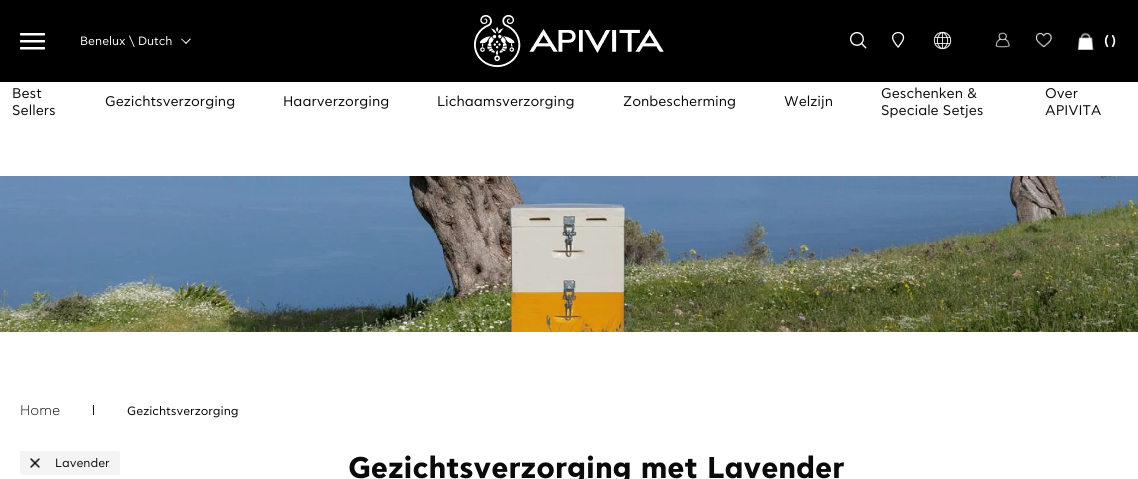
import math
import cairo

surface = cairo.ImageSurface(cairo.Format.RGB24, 1138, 479)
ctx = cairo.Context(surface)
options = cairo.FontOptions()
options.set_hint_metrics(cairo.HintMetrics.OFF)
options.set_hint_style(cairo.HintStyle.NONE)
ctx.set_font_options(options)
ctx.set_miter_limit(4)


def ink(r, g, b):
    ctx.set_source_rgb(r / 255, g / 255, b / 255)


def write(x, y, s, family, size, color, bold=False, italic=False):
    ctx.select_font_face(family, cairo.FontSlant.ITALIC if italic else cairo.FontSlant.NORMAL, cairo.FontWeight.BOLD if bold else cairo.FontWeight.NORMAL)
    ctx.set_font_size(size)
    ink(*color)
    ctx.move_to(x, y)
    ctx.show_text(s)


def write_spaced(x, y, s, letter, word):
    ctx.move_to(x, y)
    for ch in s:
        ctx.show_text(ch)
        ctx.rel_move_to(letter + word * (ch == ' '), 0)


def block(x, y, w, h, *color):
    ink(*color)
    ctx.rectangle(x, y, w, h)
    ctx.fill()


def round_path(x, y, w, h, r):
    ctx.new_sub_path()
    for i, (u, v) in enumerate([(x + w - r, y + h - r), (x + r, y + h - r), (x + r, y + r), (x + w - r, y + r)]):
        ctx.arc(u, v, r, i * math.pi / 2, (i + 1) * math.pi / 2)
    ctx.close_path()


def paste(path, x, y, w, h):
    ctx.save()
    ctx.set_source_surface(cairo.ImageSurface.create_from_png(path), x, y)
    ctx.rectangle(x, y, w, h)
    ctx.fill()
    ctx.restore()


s1 = dict(family="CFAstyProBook", size=12, color=(255, 255, 255))
s2 = dict(family="CFAstyProBook", size=14, color=(10, 10, 10))
s3 = dict(family="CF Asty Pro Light", size=14, color=(0, 0, 0))
s4 = dict(family="CFAstyProBook", size=12, color=(0, 0, 0))
s5 = dict(family="CFAstyProBook", size=12, color=(10, 10, 10))
s6 = dict(family="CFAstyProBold", size=30, color=(10, 10, 10), bold=True)

ink(255, 255, 255)
ctx.paint()
block(0, 0, 1138, 82, 0, 0, 0)
paste("pic1.png", 20, 33, 25, 17)
write(80, 45, "Benelux \\ Dutch", **s1)
ctx.new_path()
ctx.move_to(190, 38.5)
ctx.line_to(191, 39)
ctx.line_to(186, 44)
ctx.line_to(185.5, 43)
ctx.close_path()
ctx.fill()
ctx.new_path()
ctx.move_to(181.5, 38.5)
ctx.line_to(186.5, 43)
ctx.line_to(186, 44)
ctx.line_to(181, 39)
ctx.close_path()
ctx.fill()
paste("pic2.png", 474, 15, 190, 52)
paste("pic3.png", 850, 32, 17, 17)
paste("pic4.png", 892, 32, 13, 16)
paste("pic5.png", 933, 31, 19, 19)
paste("pic6.png", 995, 32, 15, 16)
paste("pic7.png", 1036, 32, 16, 16)
paste("pic8.png", 1077, 32, 17, 18)
ctx.select_font_face("CF Asty Pro SemiBold")
ctx.set_font_size(14)
write_spaced(1104, 45, "()", 2, 0)
write(12, 98, "Best", **s2)
write(12, 115, "Sellers", **s2)
write(105, 106, "Gezichtsverzorging", **s2)
write(283, 106, "Haarverzorging", **s2)
write(437, 106, "Lichaamsverzorging", **s2)
write(623, 106, "Zonbescherming", **s2)
write(784, 106, "Welzijn", **s2)
write(881, 98, "Geschenken &", **s2)
write(881, 115, "Speciale Setjes", **s2)
write(1045, 98, "Over", **s2)
write(1045, 115, "APIVITA", **s2)
paste("pic9.png", 0, 176, 1138, 156)
write(20, 415, "Home", **s3)
block(93, 405, 1, 10, 10, 10, 10)
write(127, 415, "Gezichtsverzorging", **s4)
ink(244, 244, 244)
round_path(20, 451, 100, 24, 2)
ctx.fill()
paste("pic10.png", 30, 458, 10, 10)
write(55, 467, "Lavender", **s5)
write(348, 478, "Gezichtsverzorging met Lavender", **s6)
surface.write_to_png("screenshot.png")
